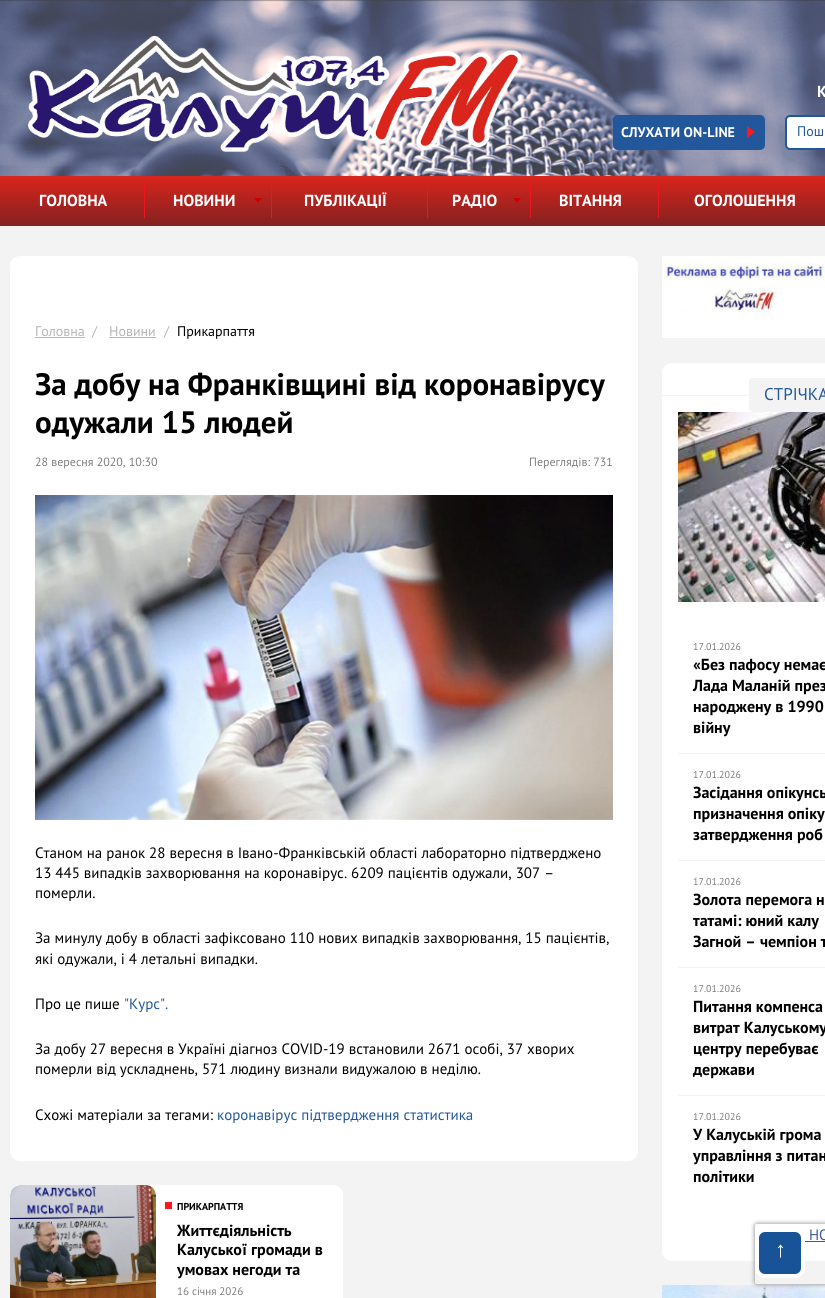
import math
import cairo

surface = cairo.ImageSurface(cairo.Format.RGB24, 825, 1298)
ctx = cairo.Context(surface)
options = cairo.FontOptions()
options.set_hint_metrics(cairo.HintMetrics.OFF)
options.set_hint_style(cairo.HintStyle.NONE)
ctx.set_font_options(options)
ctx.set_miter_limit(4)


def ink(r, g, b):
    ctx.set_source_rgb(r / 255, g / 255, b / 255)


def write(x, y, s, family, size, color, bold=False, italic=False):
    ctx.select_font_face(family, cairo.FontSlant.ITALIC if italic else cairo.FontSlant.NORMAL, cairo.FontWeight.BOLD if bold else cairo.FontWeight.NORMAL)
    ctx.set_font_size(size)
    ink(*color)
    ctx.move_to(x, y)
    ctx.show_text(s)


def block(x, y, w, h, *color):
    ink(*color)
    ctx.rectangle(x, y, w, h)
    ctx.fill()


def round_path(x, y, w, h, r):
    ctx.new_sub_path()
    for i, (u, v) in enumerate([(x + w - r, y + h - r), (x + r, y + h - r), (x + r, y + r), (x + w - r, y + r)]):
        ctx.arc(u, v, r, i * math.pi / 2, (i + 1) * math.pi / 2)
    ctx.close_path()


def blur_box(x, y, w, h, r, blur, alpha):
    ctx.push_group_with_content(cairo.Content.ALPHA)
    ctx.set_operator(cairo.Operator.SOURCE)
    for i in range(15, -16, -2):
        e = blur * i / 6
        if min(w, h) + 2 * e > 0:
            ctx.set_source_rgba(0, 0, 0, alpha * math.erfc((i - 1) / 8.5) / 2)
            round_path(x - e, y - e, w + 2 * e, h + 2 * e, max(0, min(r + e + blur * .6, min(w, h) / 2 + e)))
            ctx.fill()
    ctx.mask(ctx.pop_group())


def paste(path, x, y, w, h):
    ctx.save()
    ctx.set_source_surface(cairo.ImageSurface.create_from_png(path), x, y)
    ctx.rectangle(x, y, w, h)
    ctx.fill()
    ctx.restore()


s1 = dict(family="PT Sans", size=16, color=(255, 255, 255), bold=True)
s2 = dict(family="PT Sans", size=14, color=(255, 255, 255), bold=True)
s3 = dict(family="PT Sans", size=14, color=(34, 88, 155))
s4 = dict(family="PT Sans", size=14, color=(182, 182, 182))
s5 = dict(family="PT Sans", size=14, color=(0, 0, 0))
s6 = dict(family="PT Sans", size=31, color=(0, 0, 0), bold=True)
s7 = dict(family="PT Sans", size=12, color=(126, 126, 126))
s8 = dict(family="PT Sans", size=15, color=(0, 0, 0))
s9 = dict(family="PT Sans", size=15, color=(34, 88, 155))
s10 = dict(family="PT Sans", size=10, color=(0, 0, 0), bold=True)
s11 = dict(family="PT Sans", size=16, color=(0, 0, 0), bold=True)
s12 = dict(family="PT Sans", size=11, color=(126, 126, 126))
s13 = dict(family="PT Sans", size=17, color=(34, 88, 155))
s14 = dict(family="PT Sans", size=10, color=(126, 126, 126))
s15 = dict(family="PT Sans", size=15, color=(59, 89, 152))
s16 = dict(family="Liberation Sans", size=22, color=(255, 255, 255))

ink(243, 243, 243)
ctx.paint()
paste("pic1.png", 0, 0, 825, 176)
paste("pic2.png", 28, 35, 494, 117)
write(817, 97, "К", **s1)
ink(34, 88, 155)
round_path(613, 115, 152, 35, 5)
ctx.fill()
write(621, 137, "СЛУХАТИ ON-LINE", **s2)
ink(255, 23, 31)
ctx.new_path()
ctx.move_to(747, 138)
ctx.line_to(747, 126)
ctx.line_to(755, 132)
ctx.close_path()
ctx.fill()
ink(255, 255, 255)
round_path(786, 116, 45, 33, 4)
ctx.fill_preserve()
ink(34, 88, 155)
ctx.stroke()
write(797, 136, "Пош", **s3)
gradient = cairo.LinearGradient(500, 176, 500, 226)
gradient.add_color_stop_rgba(0, 0.855, 0.145, 0.11, 1)
gradient.add_color_stop_rgba(1, 0.514, 0.129, 0.129, 1)
ctx.set_source(gradient)
ctx.rectangle(0, 176, 825, 50)
ctx.fill()
write(39, 206, "ГОЛОВНА", **s1)
block(144, 184, 1, 34, 240, 21, 28)
write(173, 206, "НОВИНИ", **s1)
ink(202, 0, 0)
ctx.new_path()
ctx.move_to(254, 198)
ctx.line_to(262, 198)
ctx.line_to(258, 203)
ctx.close_path()
ctx.fill()
block(271, 184, 1, 34, 240, 21, 28)
write(304, 206, "ПУБЛІКАЦІЇ", **s1)
block(427, 184, 1, 34, 240, 21, 28)
write(452, 206, "РАДІО", **s1)
ink(202, 0, 0)
ctx.new_path()
ctx.move_to(513, 198)
ctx.line_to(521, 198)
ctx.line_to(517, 203)
ctx.close_path()
ctx.fill()
block(530, 184, 1, 34, 240, 21, 28)
write(559, 206, "ВIТАННЯ", **s1)
block(658, 184, 1, 34, 240, 21, 28)
write(694, 206, "ОГОЛОШЕННЯ", **s1)
round_path(10, 256, 628, 905, 10)
ctx.fill()
write(35, 336, "Головна", **s4)
block(35, 337, 50, 1, 182, 182, 182)
write(92, 336, "/", **s4)
write(109, 336, "Новини", **s4)
block(109, 337, 47, 1, 182, 182, 182)
write(164, 336, "/", **s4)
write(177, 336, "Прикарпаття", **s5)
write(35, 395, "За добу на Франківщині від коронавірусу", **s6)
write(35, 433, "одужали 15 людей", **s6)
write(35, 466, "28 вересня 2020, 10:30", **s7)
write(529, 466, "Переглядів: 731", **s7)
paste("pic3.png", 35, 495, 578, 325)
write(35, 858, "Станом на ранок 28 вересня в Івано-Франківській області лабораторно підтверджено", **s8)
write(35, 878, "13 445 випадків захворювання на коронавірус. 6209 пацієнтів одужали, 307 –", **s8)
write(35, 898, "померли.", **s8)
write(35, 943, "За минулу добу в області зафіксовано 110 нових випадків захворювання, 15 пацієнтів,", **s8)
write(35, 964, "які одужали, і 4 летальні випадки.", **s8)
write(35, 1009, "Про це пише", **s8)
write(124, 1009, "\"Курс\".", **s9)
write(35, 1054, "За добу 27 вересня в Україні діагноз COVID-19 встановили 2671 особі, 37 хворих", **s8)
write(35, 1074, "померли від ускладнень, 571 людину визнали видужалою в неділю.", **s8)
write(35, 1120, "Схожі матеріали за тегами:", **s8)
write(217, 1120, "коронавірус підтвердження статистика", **s9)
ink(255, 255, 255)
round_path(10, 1185, 333, 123, 10)
ctx.fill()
paste("pic4.png", 10, 1185, 146, 113)
block(165, 1202, 7, 7, 255, 23, 31)
write(177, 1210, "ПРИКАРПАТТЯ", **s10)
write(177, 1236, "Життєдіяльність", **s11)
write(177, 1255, "Калуської громади в", **s11)
write(177, 1275, "умовах негоди та", **s11)
write(177, 1295, "16 січня 2026", **s12)
paste("pic5.png", 662, 256, 163, 82)
ink(255, 255, 255)
round_path(662, 363, 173, 898, 10)
ctx.fill()
ink(243, 243, 243)
round_path(749, 378, 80, 34, 4)
ctx.fill()
block(662, 395, 87, 1, 243, 243, 243)
write(764, 400, "СТРIЧКА", **s13)
paste("pic6.png", 678, 412, 147, 190)
block(678, 753, 147, 1, 243, 243, 243)
write(693, 650, "17.01.2026", **s14)
write(693, 670, "«Без пафосу немає", **s11)
write(693, 691, "Лада Маланій през", **s11)
write(693, 712, "народжену в 1990", **s11)
write(693, 733, "війну", **s11)
block(678, 860, 147, 1, 243, 243, 243)
write(693, 778, "17.01.2026", **s14)
write(693, 798, "Засідання опікунсь", **s11)
write(693, 819, "призначення опіку", **s11)
write(693, 840, "затвердження роб", **s11)
block(678, 967, 147, 1, 243, 243, 243)
write(693, 885, "17.01.2026", **s14)
write(693, 905, "Золота перемога н", **s11)
write(693, 926, "татамі: юний калу", **s11)
write(693, 947, "Загной – чемпіон т", **s11)
block(678, 1095, 147, 1, 243, 243, 243)
write(693, 992, "17.01.2026", **s14)
write(693, 1012, "Питання компенса", **s11)
write(693, 1033, "витрат Калуському", **s11)
write(693, 1054, "центру перебуває", **s11)
write(693, 1075, "держави", **s11)
write(693, 1120, "17.01.2026", **s14)
write(693, 1140, "У Калуській грома", **s11)
write(693, 1161, "управління з питан", **s11)
write(693, 1182, "політики", **s11)
write(809, 1240, "НО", **s15)
block(805, 1241, 20, 1, 59, 89, 152)
paste("pic7.png", 662, 1285, 163, 13)
ctx.save()
ctx.set_fill_rule(cairo.FillRule.EVEN_ODD)
ctx.new_path()
ctx.move_to(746, 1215)
ctx.line_to(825, 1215)
ctx.line_to(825, 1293)
ctx.line_to(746, 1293)
ctx.close_path()
ctx.move_to(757, 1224)
ctx.line_to(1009, 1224)
ctx.curve_to(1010, 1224, 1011, 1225, 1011, 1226)
ctx.line_to(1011, 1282)
ctx.curve_to(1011, 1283, 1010, 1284, 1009, 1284)
ctx.line_to(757, 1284)
ctx.curve_to(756, 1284, 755, 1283, 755, 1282)
ctx.line_to(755, 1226)
ctx.curve_to(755, 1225, 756, 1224, 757, 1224)
ctx.close_path()
ctx.clip()
ink(128, 128, 128)
blur_box(755, 1224, 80, 60, 2, 2.5, 1)
ctx.restore()
ink(24, 83, 151)
round_path(757, 1230, 46, 46, 8)
ctx.fill_preserve()
ink(255, 255, 255)
ctx.set_line_width(4)
ctx.stroke()
write(775, 1257, "↑", **s16)
surface.write_to_png("screenshot.png")
